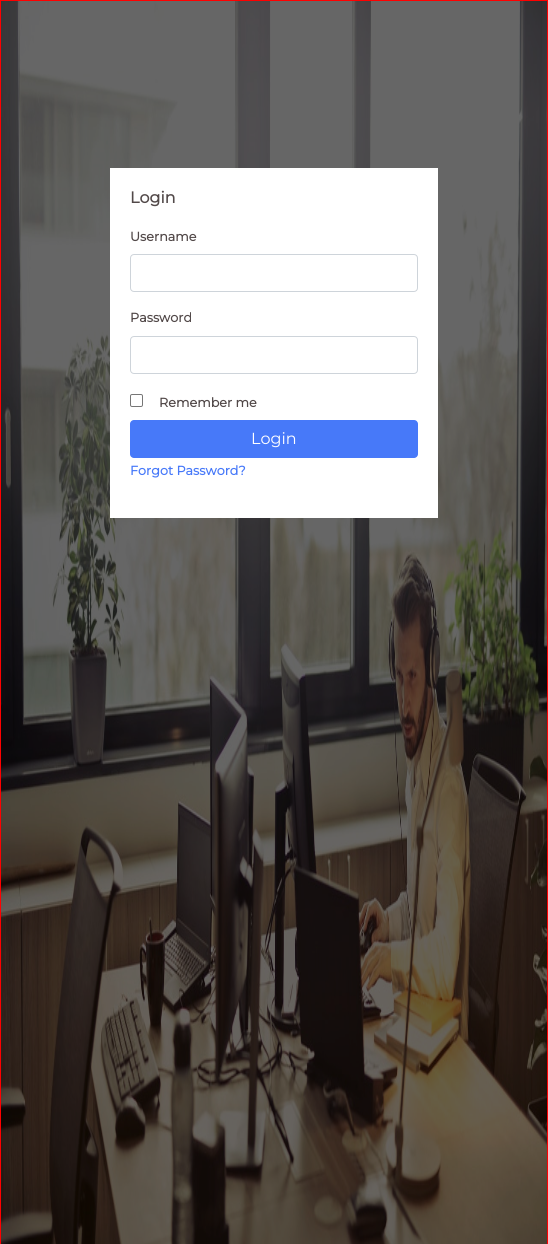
import math
import cairo

surface = cairo.ImageSurface(cairo.Format.RGB24, 548, 1244)
ctx = cairo.Context(surface)
options = cairo.FontOptions()
options.set_hint_metrics(cairo.HintMetrics.OFF)
options.set_hint_style(cairo.HintStyle.NONE)
ctx.set_font_options(options)
ctx.set_miter_limit(4)


def ink(r, g, b):
    ctx.set_source_rgb(r / 255, g / 255, b / 255)


def write(x, y, s, family, size, color, bold=False, italic=False):
    ctx.select_font_face(family, cairo.FontSlant.ITALIC if italic else cairo.FontSlant.NORMAL, cairo.FontWeight.BOLD if bold else cairo.FontWeight.NORMAL)
    ctx.set_font_size(size)
    ink(*color)
    ctx.move_to(x, y)
    ctx.show_text(s)


def block(x, y, w, h, *color):
    ink(*color)
    ctx.rectangle(x, y, w, h)
    ctx.fill()


def round_path(x, y, w, h, r):
    ctx.new_sub_path()
    for i, (u, v) in enumerate([(x + w - r, y + h - r), (x + r, y + h - r), (x + r, y + r), (x + w - r, y + r)]):
        ctx.arc(u, v, r, i * math.pi / 2, (i + 1) * math.pi / 2)
    ctx.close_path()


def paste(path, x, y, w, h):
    ctx.save()
    ctx.set_source_surface(cairo.ImageSurface.create_from_png(path), x, y)
    ctx.rectangle(x, y, w, h)
    ctx.fill()
    ctx.restore()


s1 = dict(family="Montserrat", size=16, color=(82, 73, 73), bold=True)
s2 = dict(family="Montserrat", size=12.75, color=(82, 73, 73), bold=True)
s3 = dict(family="Montserrat Thin", size=16, color=(255, 255, 255))
s4 = dict(family="Montserrat", size=12.75, color=(71, 121, 249), bold=True)

ink(255, 255, 255)
ctx.paint()
ctx.rectangle(0.5, 0.5, 547, 1243)
ink(255, 0, 0)
ctx.set_line_width(1)
ctx.stroke()
paste("pic1.png", 1, 1, 546, 1243)
block(110, 168, 328, 350, 255, 255, 255)
write(130, 203, "Login", **s1)
write(130, 241, "Username", **s2)
round_path(130.5, 254.5, 287, 37, 3.5)
ink(206, 212, 218)
ctx.stroke()
write(130, 322, "Password", **s2)
round_path(130.5, 336.5, 287, 37, 3.5)
ink(206, 212, 218)
ctx.stroke()
round_path(130.5, 394.5, 12, 12, 1.5)
ink(118, 118, 118)
ctx.stroke()
write(159, 407, "Remember me", **s2)
ink(71, 121, 249)
round_path(130, 420, 288, 38, 4)
ctx.fill()
write(251, 444, "Login", **s3)
write(130, 475, "Forgot Password?", **s4)
surface.write_to_png("screenshot.png")
